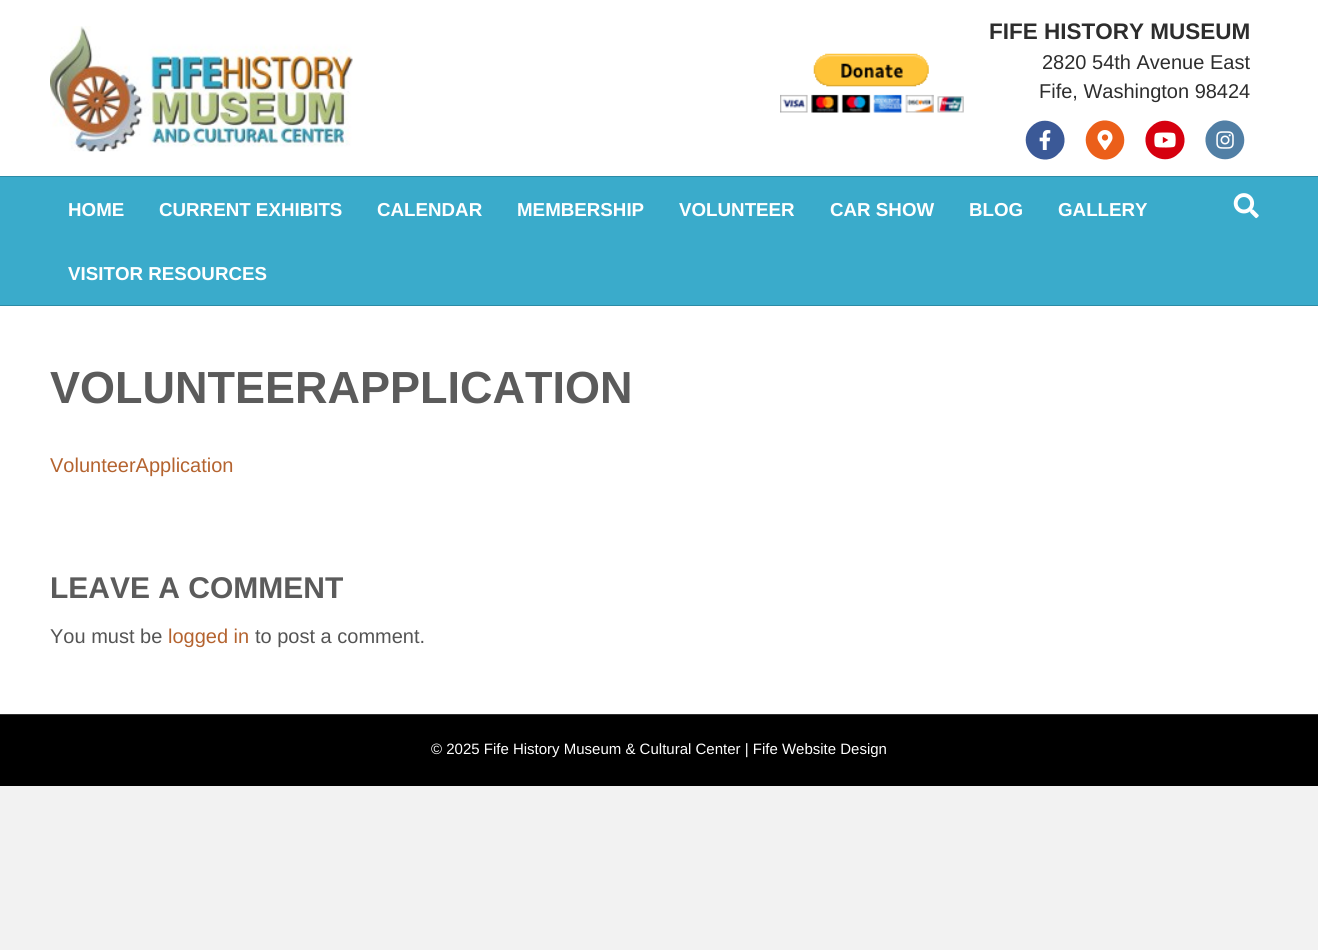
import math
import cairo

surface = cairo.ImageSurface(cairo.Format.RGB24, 1318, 950)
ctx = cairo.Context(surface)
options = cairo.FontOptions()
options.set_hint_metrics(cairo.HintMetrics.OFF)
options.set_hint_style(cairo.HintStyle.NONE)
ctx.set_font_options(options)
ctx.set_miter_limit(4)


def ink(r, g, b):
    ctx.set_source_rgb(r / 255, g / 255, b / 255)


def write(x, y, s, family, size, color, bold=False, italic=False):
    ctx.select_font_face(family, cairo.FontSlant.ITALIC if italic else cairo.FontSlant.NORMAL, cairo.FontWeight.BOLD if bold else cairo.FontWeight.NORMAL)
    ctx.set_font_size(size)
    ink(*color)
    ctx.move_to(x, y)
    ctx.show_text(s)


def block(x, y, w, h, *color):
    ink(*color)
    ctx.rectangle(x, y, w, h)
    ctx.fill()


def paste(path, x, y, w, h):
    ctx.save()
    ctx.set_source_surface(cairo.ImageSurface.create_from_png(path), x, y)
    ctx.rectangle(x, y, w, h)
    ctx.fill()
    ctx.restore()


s1 = dict(family="Liberation Sans", size=22.5, color=(45, 45, 45), bold=True)
s2 = dict(family="Liberation Sans", size=20, color=(45, 45, 45))
s3 = dict(family="Liberation Sans", size=18.75, color=(255, 255, 255), bold=True)
s4 = dict(family="Liberation Sans", size=45, color=(91, 91, 91), bold=True)
s5 = dict(family="Liberation Sans", size=20, color=(180, 99, 47))
s6 = dict(family="Liberation Sans", size=30, color=(91, 91, 91), bold=True)
s7 = dict(family="Liberation Sans", size=20, color=(84, 84, 84))
s8 = dict(family="Liberation Sans", size=15, color=(255, 255, 255))

ink(242, 242, 242)
ctx.paint()
block(0, 0, 1318, 176, 255, 255, 255)
paste("pic1.png", 50, 26, 303, 126)
paste("pic2.png", 780, 53, 184, 60)
write(989, 39, "FIFE HISTORY MUSEUM", **s1)
write(1042, 69, "2820 54th Avenue East", **s2)
write(1039, 98, "Fife, Washington 98424", **s2)
ink(59, 89, 151)
ctx.new_path()
ctx.move_to(1031.5, 126.5)
ctx.curve_to(1044, 113.5, 1066, 124, 1064.5, 142)
ctx.curve_to(1064, 146.5, 1062, 150.5, 1058.5, 153.5)
ctx.curve_to(1055.5, 157, 1051.5, 159, 1047, 159.5)
ctx.curve_to(1029, 161, 1018.5, 139, 1031.5, 126.5)
ctx.close_path()
ctx.fill()
paste("pic3.png", 1039, 130, 12, 20)
ink(235, 95, 26)
ctx.new_path()
ctx.move_to(1091.5, 126.5)
ctx.curve_to(1094.5, 123, 1098.5, 121, 1103, 120.5)
ctx.curve_to(1121, 119, 1131.5, 141, 1118.5, 153.5)
ctx.curve_to(1115.5, 157, 1111.5, 159, 1107, 159.5)
ctx.curve_to(1089, 161, 1078.5, 139, 1091.5, 126.5)
ctx.close_path()
ctx.fill()
paste("pic4.png", 1097, 130, 16, 20)
ink(214, 0, 15)
ctx.new_path()
ctx.move_to(1151.5, 126.5)
ctx.curve_to(1164, 113.5, 1186, 124, 1184.5, 142)
ctx.curve_to(1184, 146.5, 1182, 150.5, 1178.5, 153.5)
ctx.curve_to(1166, 166.5, 1144, 156, 1145.5, 138)
ctx.curve_to(1146, 133.5, 1148, 129.5, 1151.5, 126.5)
ctx.close_path()
ctx.fill()
paste("pic5.png", 1154, 132, 22, 16)
ink(81, 127, 165)
ctx.new_path()
ctx.move_to(1211.5, 126.5)
ctx.curve_to(1214.5, 123, 1218.5, 121, 1223, 120.5)
ctx.curve_to(1241, 119, 1251.5, 141, 1238.5, 153.5)
ctx.curve_to(1226, 166.5, 1204, 156, 1205.5, 138)
ctx.curve_to(1206, 133.5, 1208, 129.5, 1211.5, 126.5)
ctx.close_path()
ctx.fill()
paste("pic6.png", 1216, 131, 18, 18)
block(0, 177, 1318, 128, 58, 171, 203)
block(0, 176, 1318, 1, 44, 139, 166)
block(0, 305, 1318, 1, 44, 139, 166)
write(68, 216, "HOME", **s3)
write(159, 216, "CURRENT EXHIBITS", **s3)
write(377, 216, "CALENDAR", **s3)
write(517, 216, "MEMBERSHIP", **s3)
write(679, 216, "VOLUNTEER", **s3)
write(830, 216, "CAR SHOW", **s3)
write(969, 216, "BLOG", **s3)
write(1058, 216, "GALLERY", **s3)
write(68, 280, "VISITOR RESOURCES", **s3)
paste("pic7.png", 1233, 193, 26, 26)
block(0, 306, 1318, 408, 255, 255, 255)
write(50, 403, "VOLUNTEERAPPLICATION", **s4)
write(50, 472, "VolunteerApplication", **s5)
write(50, 598, "LEAVE A COMMENT", **s6)
write(50, 643, "You must be", **s7)
write(168, 643, "logged in", **s5)
write(255, 643, "to post a comment.", **s7)
block(0, 715, 1318, 71, 0, 0, 0)
block(0, 714, 1318, 1, 48, 48, 48)
write(431, 754, "© 2025 Fife History Museum & Cultural Center | Fife Website Design", **s8)
surface.write_to_png("screenshot.png")
